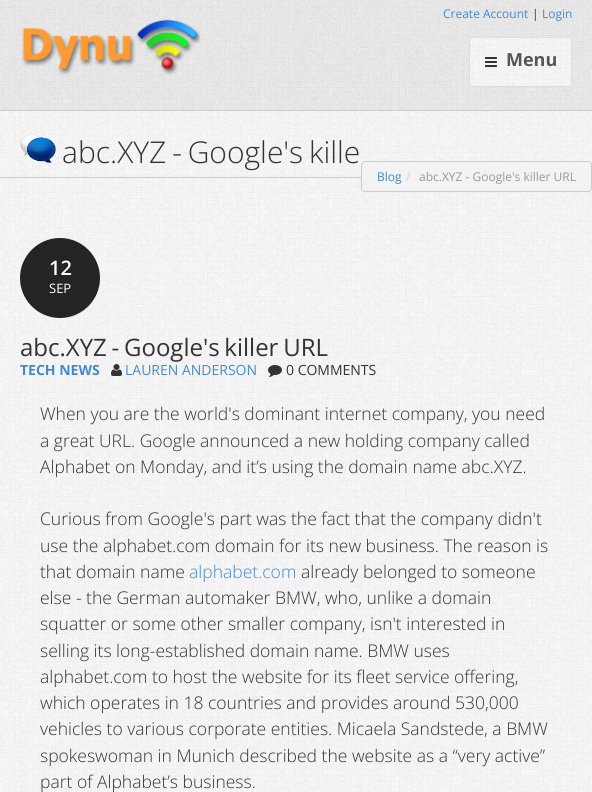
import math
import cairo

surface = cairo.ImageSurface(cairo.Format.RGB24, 592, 792)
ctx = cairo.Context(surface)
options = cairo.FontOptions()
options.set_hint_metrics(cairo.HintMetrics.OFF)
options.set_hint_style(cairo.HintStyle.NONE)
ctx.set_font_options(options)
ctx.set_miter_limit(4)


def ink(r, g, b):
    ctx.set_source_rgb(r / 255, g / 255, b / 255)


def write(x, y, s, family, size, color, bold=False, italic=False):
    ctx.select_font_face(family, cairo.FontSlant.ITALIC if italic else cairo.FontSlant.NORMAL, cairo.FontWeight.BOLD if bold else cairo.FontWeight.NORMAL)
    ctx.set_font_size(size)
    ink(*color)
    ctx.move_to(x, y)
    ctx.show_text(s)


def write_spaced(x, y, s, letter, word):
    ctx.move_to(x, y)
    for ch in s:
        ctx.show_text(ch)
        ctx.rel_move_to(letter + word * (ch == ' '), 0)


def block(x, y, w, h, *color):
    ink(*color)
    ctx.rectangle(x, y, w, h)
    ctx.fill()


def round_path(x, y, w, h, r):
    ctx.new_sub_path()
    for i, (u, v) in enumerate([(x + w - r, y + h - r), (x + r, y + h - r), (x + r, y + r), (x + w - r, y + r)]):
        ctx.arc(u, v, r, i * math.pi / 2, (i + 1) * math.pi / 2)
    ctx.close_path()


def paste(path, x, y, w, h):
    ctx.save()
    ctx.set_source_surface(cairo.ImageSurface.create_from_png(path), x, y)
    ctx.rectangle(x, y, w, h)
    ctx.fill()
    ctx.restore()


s1 = dict(family="Open Sans", size=12, color=(66, 139, 202))
s2 = dict(family="Open Sans", size=12, color=(51, 51, 51))
s3 = dict(family="Open Sans", size=18, color=(85, 85, 85), bold=True)
s4 = dict(family="Open Sans", size=12, color=(204, 204, 204))
s5 = dict(family="Open Sans", size=12, color=(153, 153, 153))
s6 = dict(family="Open Sans SemiBold", size=20, color=(255, 255, 255))
s7 = dict(family="Open Sans", size=13, color=(255, 255, 255))
s8 = dict(family="Open Sans", size=14, color=(66, 139, 202), bold=True)
s9 = dict(family="Open Sans", size=14, color=(66, 139, 202))
s10 = dict(family="Open Sans", size=14, color=(51, 51, 51))
s11 = dict(family="Open Sans Light", size=17.5, color=(51, 51, 51))
s12 = dict(family="Open Sans Light", size=17.5, color=(66, 139, 202))

ink(255, 255, 255)
ctx.paint()
paste("pic1.png", 0, 0, 592, 110)
block(0, 110, 592, 1, 204, 204, 204)
write(443, 18, "Create Account", **s1)
write(532, 18, "|", **s2)
write(542, 18, "Login", **s1)
paste("pic2.png", 22, 19, 178, 56)
paste("pic3.png", 469, 37, 103, 50)
round_path(469.5, 37.5, 102, 49, 3.5)
ink(221, 221, 221)
ctx.set_line_width(1)
ctx.stroke()
paste("pic4.png", 485, 57, 12, 10)
write(506, 66, "Menu", **s3)
paste("pic5.png", 0, 111, 592, 681)
block(0, 177, 361, 1, 204, 204, 204)
paste("pic6.png", 20, 134, 36, 29)
ctx.select_font_face("Open Sans Light")
ctx.set_font_size(30)
ink(51, 51, 51)
write_spaced(62, 163, "abc.XYZ - Google's kille", 0, -2)
ink(243, 243, 243)
round_path(361.5, 161.5, 230, 30, 3.5)
ctx.fill_preserve()
ink(204, 204, 204)
ctx.stroke()
write(377, 181, "Blog", **s1)
write(406, 181, "/", **s4)
write(419, 181, "abc.XYZ - Google's killer URL", **s5)
ctx.set_source_rgba(0, 0, 0, 0.85)
ctx.new_path()
ctx.arc(60, 278, 40, 0, 2 * math.pi)
ctx.fill()
write(49, 275, "12", **s6)
write(49, 293, "SEP", **s7)
ctx.set_font_size(24)
ink(51, 51, 51)
write_spaced(20, 356, "abc.XYZ - Google's killer URL", 0, -1.5)
write(20, 375, "TECH NEWS", **s8)
paste("pic7.png", 111, 364, 11, 12)
write(125, 375, "LAUREN ANDERSON", **s9)
paste("pic8.png", 268, 365, 14, 12)
write(286, 375, "0 COMMENTS", **s10)
write(40, 420, "When you are the world's dominant internet company, you need", **s11)
write(40, 447, "a great URL. Google announced a new holding company called", **s11)
write(40, 473, "Alphabet on Monday, and it’s using the domain name abc.XYZ.", **s11)
write(40, 525, "Curious from Google's part was the fact that the company didn't", **s11)
write(40, 552, "use the alphabet.com domain for its new business. The reason is", **s11)
write(40, 578, "that domain name", **s11)
write(189, 578, "alphabet.com", **s12)
write(301, 578, "already belonged to someone", **s11)
write(40, 604, "else - the German automaker BMW, who, unlike a domain", **s11)
write(40, 630, "squatter or some other smaller company, isn't interested in", **s11)
write(40, 657, "selling its long-established domain name. BMW uses", **s11)
write(40, 683, "alphabet.com to host the website for its fleet service offering,", **s11)
write(40, 709, "which operates in 18 countries and provides around 530,000", **s11)
write(40, 735, "vehicles to various corporate entities. Micaela Sandstede, a BMW", **s11)
write(40, 762, "spokeswoman in Munich described the website as a “very active”", **s11)
write(40, 788, "part of Alphabet’s business.", **s11)
surface.write_to_png("screenshot.png")
